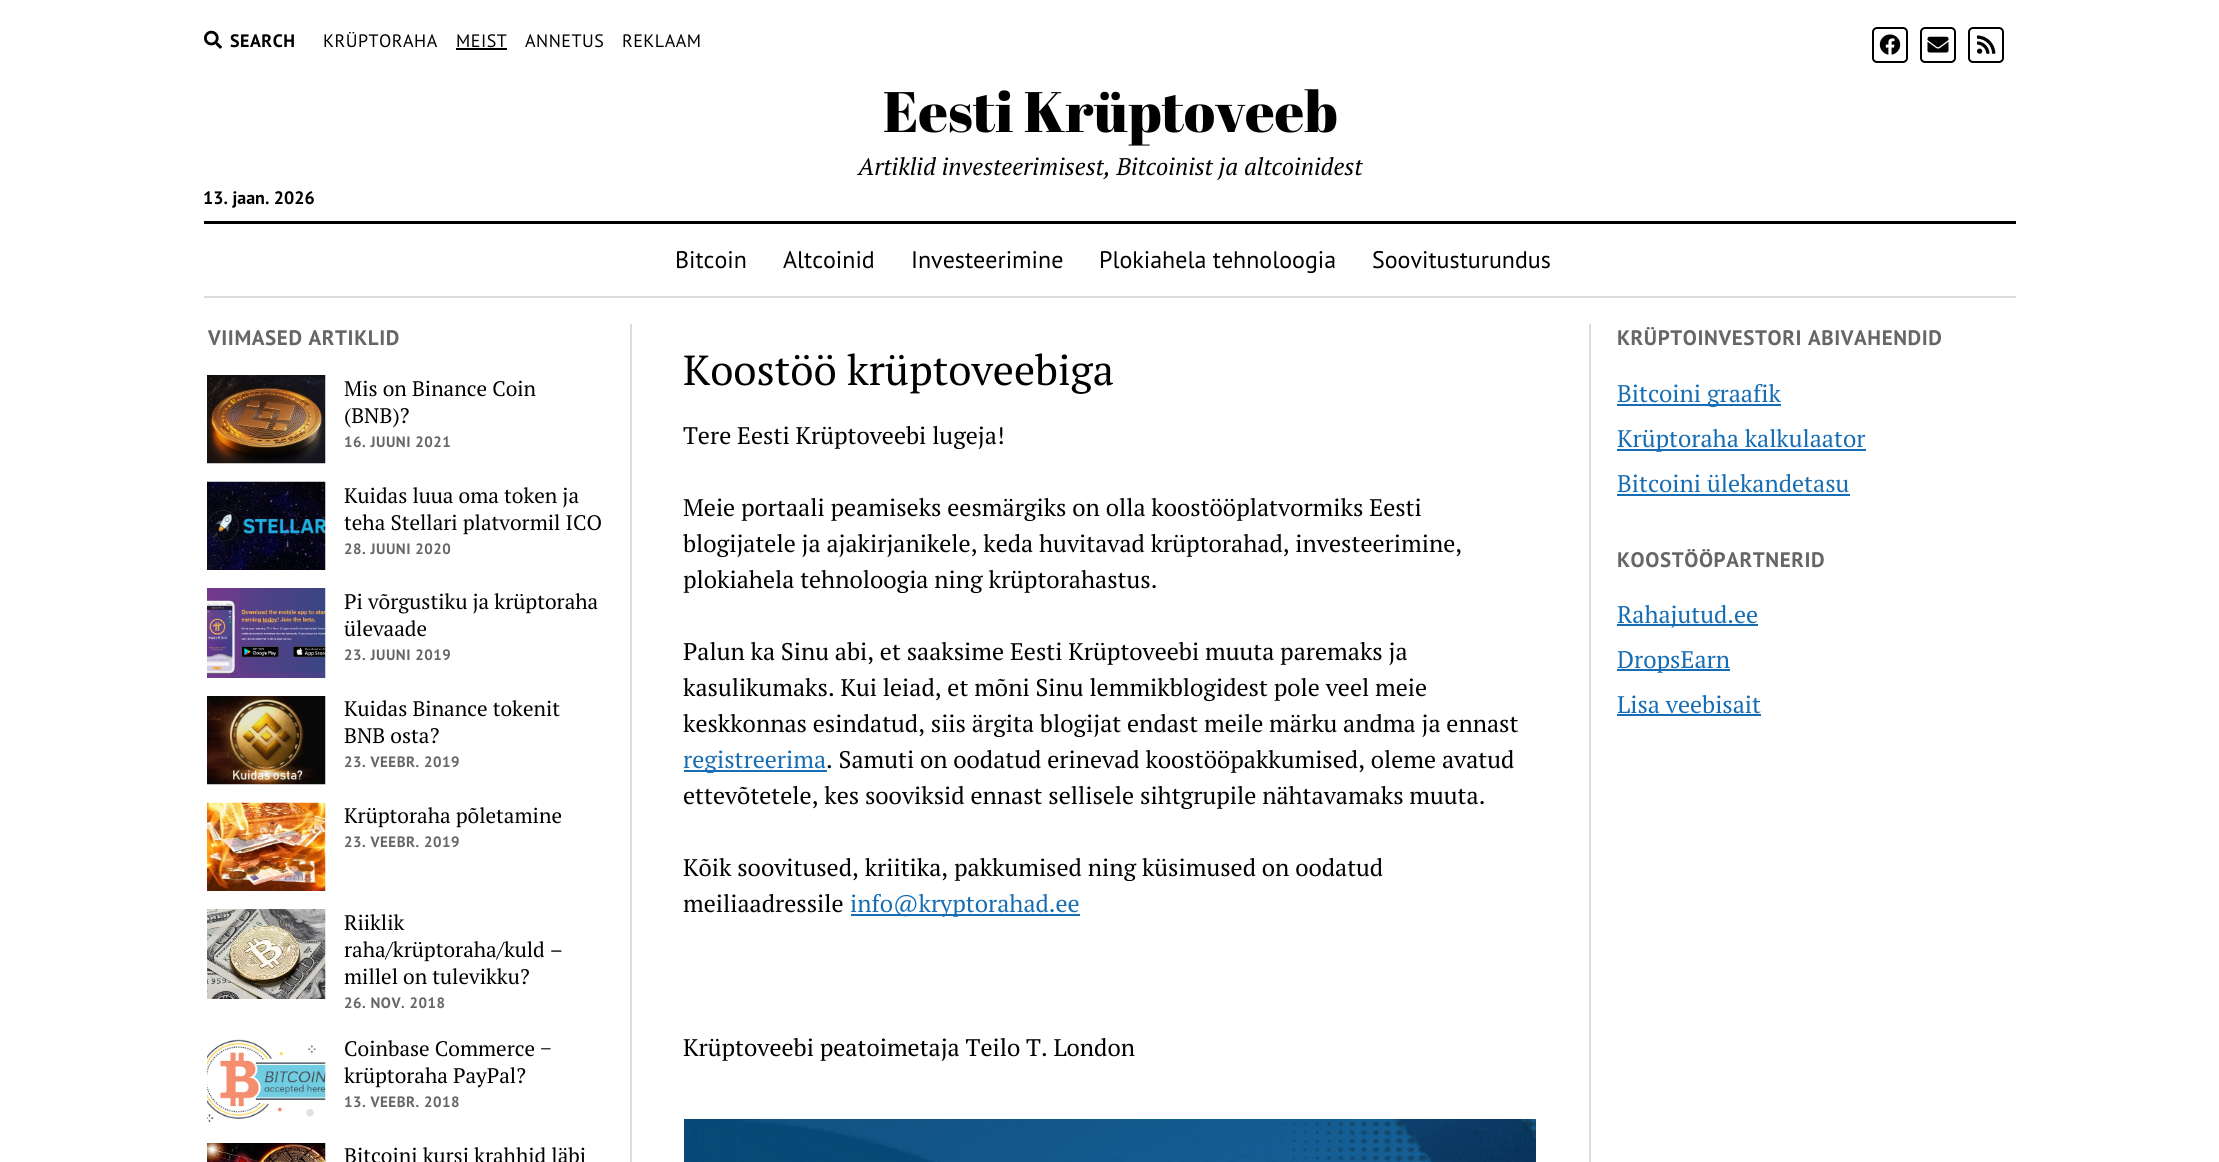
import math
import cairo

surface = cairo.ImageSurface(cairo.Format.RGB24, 2219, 1162)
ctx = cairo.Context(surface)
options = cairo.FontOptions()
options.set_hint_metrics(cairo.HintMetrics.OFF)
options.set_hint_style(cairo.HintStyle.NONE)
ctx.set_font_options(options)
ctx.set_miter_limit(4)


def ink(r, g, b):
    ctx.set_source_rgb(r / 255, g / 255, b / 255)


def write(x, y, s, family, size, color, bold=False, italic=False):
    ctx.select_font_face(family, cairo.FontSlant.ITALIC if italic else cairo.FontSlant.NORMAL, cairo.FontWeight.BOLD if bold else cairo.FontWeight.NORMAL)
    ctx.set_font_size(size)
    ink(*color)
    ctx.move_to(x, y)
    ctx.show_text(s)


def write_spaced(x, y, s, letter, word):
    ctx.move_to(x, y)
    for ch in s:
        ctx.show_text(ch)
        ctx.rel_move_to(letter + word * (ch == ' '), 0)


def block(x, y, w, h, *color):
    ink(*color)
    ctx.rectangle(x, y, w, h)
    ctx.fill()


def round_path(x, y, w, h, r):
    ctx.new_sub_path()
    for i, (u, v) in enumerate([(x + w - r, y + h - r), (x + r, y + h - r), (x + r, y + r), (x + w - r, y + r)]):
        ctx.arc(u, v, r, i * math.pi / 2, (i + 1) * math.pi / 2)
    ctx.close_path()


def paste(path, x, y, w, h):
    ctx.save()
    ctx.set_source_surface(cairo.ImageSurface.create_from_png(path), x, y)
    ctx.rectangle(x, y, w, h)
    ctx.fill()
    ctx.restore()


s1 = dict(family="Abril Fatface", size=57, color=(0, 0, 0))
s2 = dict(family="PT Serif", size=24, color=(0, 0, 0), italic=True)
s3 = dict(family="PT Sans", size=18, color=(0, 0, 0), bold=True)
s4 = dict(family="PT Sans", size=24, color=(0, 0, 0))
s5 = dict(family="PT Serif", size=21, color=(0, 0, 0))
s6 = dict(family="PT Serif", size=42, color=(0, 0, 0))
s7 = dict(family="PT Serif", size=24, color=(0, 0, 0))
s8 = dict(family="PT Serif", size=24, color=(23, 109, 179))

ink(255, 255, 255)
ctx.paint()
paste("pic1.png", 204, 30, 18, 19)
ctx.select_font_face("PT Sans", cairo.FontSlant.NORMAL, cairo.FontWeight.BOLD)
ctx.set_font_size(18)
ink(0, 0, 0)
write_spaced(230, 47, "SEARCH", 0.5, 0)
ctx.select_font_face("PT Sans")
write_spaced(323, 47, "KRÜPTORAHA", 0.5, 0)
write_spaced(456, 47, "MEIST", 0.5, 0)
block(456, 48, 51, 2, 0, 0, 0)
write_spaced(525, 47, "ANNETUS", 0.5, 0)
write_spaced(622, 47, "REKLAAM", 0.5, 0)
round_path(1873, 28, 34, 34, 4)
ctx.stroke()
paste("pic2.png", 1879, 34, 22, 21)
round_path(1921, 28, 34, 34, 4)
ctx.stroke()
paste("pic3.png", 1927, 36, 22, 17)
round_path(1969, 28, 34, 34, 4)
ctx.stroke()
paste("pic4.png", 1977, 35, 19, 19)
write(883, 132, "Eesti Krüptoveeb", **s1)
write(858, 175, "Artiklid investeerimisest, Bitcoinist ja altcoinidest", **s2)
write(203, 204, "13. jaan. 2026", **s3)
block(204, 221, 1812, 3, 0, 0, 0)
block(204, 296, 1812, 2, 220, 220, 220)
write(675, 268, "Bitcoin", **s4)
write(783, 268, "Altcoinid", **s4)
write(911, 268, "Investeerimine", **s4)
write(1099, 268, "Plokiahela tehnoloogia", **s4)
write(1372, 268, "Soovitusturundus", **s4)
block(630, 324, 2, 838, 220, 220, 220)
block(1589, 324, 2, 838, 220, 220, 220)
ctx.select_font_face("PT Sans", cairo.FontSlant.NORMAL, cairo.FontWeight.BOLD)
ctx.set_font_size(21)
ink(102, 102, 102)
write_spaced(208, 345, "VIIMASED ARTIKLID", 0.6, 0)
paste("pic5.png", 207, 375, 119, 89)
write(344, 396, "Mis on Binance Coin", **s5)
write(344, 423, "(BNB)?", **s5)
ctx.select_font_face("PT Sans", cairo.FontSlant.NORMAL, cairo.FontWeight.BOLD)
ctx.set_font_size(15)
ink(102, 102, 102)
write_spaced(344, 447, "16. JUUNI 2021", 0.5, 0)
paste("pic6.png", 207, 481, 119, 89)
write(344, 503, "Kuidas luua oma token ja", **s5)
write(344, 530, "teha Stellari platvormil ICO", **s5)
ctx.select_font_face("PT Sans", cairo.FontSlant.NORMAL, cairo.FontWeight.BOLD)
ctx.set_font_size(15)
ink(102, 102, 102)
write_spaced(344, 554, "28. JUUNI 2020", 0.5, 0)
paste("pic7.png", 207, 588, 119, 90)
write(344, 609, "Pi võrgustiku ja krüptoraha", **s5)
write(344, 636, "ülevaade", **s5)
ctx.select_font_face("PT Sans", cairo.FontSlant.NORMAL, cairo.FontWeight.BOLD)
ctx.set_font_size(15)
ink(102, 102, 102)
write_spaced(344, 660, "23. JUUNI 2019", 0.5, 0)
paste("pic8.png", 207, 696, 119, 89)
write(344, 716, "Kuidas Binance tokenit", **s5)
write(344, 743, "BNB osta?", **s5)
ctx.select_font_face("PT Sans", cairo.FontSlant.NORMAL, cairo.FontWeight.BOLD)
ctx.set_font_size(15)
ink(102, 102, 102)
write_spaced(344, 767, "23. VEEBR. 2019", 0.5, 0)
paste("pic9.png", 207, 802, 119, 89)
write(344, 823, "Krüptoraha põletamine", **s5)
ctx.select_font_face("PT Sans", cairo.FontSlant.NORMAL, cairo.FontWeight.BOLD)
ctx.set_font_size(15)
ink(102, 102, 102)
write_spaced(344, 847, "23. VEEBR. 2019", 0.5, 0)
paste("pic10.png", 207, 909, 119, 90)
write(344, 930, "Riiklik", **s5)
write(344, 957, "raha/krüptoraha/kuld –", **s5)
write(344, 984, "millel on tulevikku?", **s5)
ctx.select_font_face("PT Sans", cairo.FontSlant.NORMAL, cairo.FontWeight.BOLD)
ctx.set_font_size(15)
ink(102, 102, 102)
write_spaced(344, 1008, "26. NOV. 2018", 0.5, 0)
paste("pic11.png", 207, 1039, 119, 83)
write(344, 1056, "Coinbase Commerce −", **s5)
write(344, 1083, "krüptoraha PayPal?", **s5)
ctx.select_font_face("PT Sans", cairo.FontSlant.NORMAL, cairo.FontWeight.BOLD)
ctx.set_font_size(15)
ink(102, 102, 102)
write_spaced(344, 1107, "13. VEEBR. 2018", 0.5, 0)
paste("pic12.png", 207, 1143, 119, 19)
write(344, 1163, "Bitcoini kursi krahhid läbi", **s5)
write(683, 385, "Koostöö krüptoveebiga", **s6)
write(683, 444, "Tere Eesti Krüptoveebi lugeja!", **s7)
write(683, 516, "Meie portaali peamiseks eesmärgiks on olla koostööplatvormiks Eesti", **s7)
write(683, 552, "blogijatele ja ajakirjanikele, keda huvitavad krüptorahad, investeerimine,", **s7)
write(683, 588, "plokiahela tehnoloogia ning krüptorahastus.", **s7)
write(683, 660, "Palun ka Sinu abi, et saaksime Eesti Krüptoveebi muuta paremaks ja", **s7)
write(683, 696, "kasulikumaks. Kui leiad, et mõni Sinu lemmikblogidest pole veel meie", **s7)
write(683, 732, "keskkonnas esindatud, siis ärgita blogijat endast meile märku andma ja ennast", **s7)
block(684, 770, 143, 2, 23, 109, 179)
write(683, 768, "registreerima", **s8)
write(826, 768, ". Samuti on oodatud erinevad koostööpakkumised, oleme avatud", **s7)
write(683, 804, "ettevõtetele, kes sooviksid ennast sellisele sihtgrupile nähtavamaks muuta.", **s7)
write(683, 876, "Kõik soovitused, kriitika, pakkumised ning küsimused on oodatud", **s7)
write(683, 912, "meiliaadressile", **s7)
block(851, 914, 229, 2, 23, 109, 179)
write(850, 912, "info@kryptorahad.ee", **s8)
write(683, 1056, "Krüptoveebi peatoimetaja Teilo T. London", **s7)
paste("pic13.png", 684, 1119, 852, 43)
ctx.select_font_face("PT Sans", cairo.FontSlant.NORMAL, cairo.FontWeight.BOLD)
ctx.set_font_size(21)
ink(102, 102, 102)
write_spaced(1617, 345, "KRÜPTOINVESTORI ABIVAHENDID", 0.6, 0)
block(1617, 404, 164, 2, 23, 109, 179)
write(1617, 402, "Bitcoini graafik", **s8)
block(1617, 449, 249, 2, 23, 109, 179)
write(1617, 447, "Krüptoraha kalkulaator", **s8)
write(1617, 492, "Bitcoini ülekandetasu", **s8)
block(1617, 494, 233, 2, 23, 109, 179)
ctx.select_font_face("PT Sans", cairo.FontSlant.NORMAL, cairo.FontWeight.BOLD)
ctx.set_font_size(21)
ink(102, 102, 102)
write_spaced(1617, 567, "KOOSTÖÖPARTNERID", 0.6, 0)
block(1617, 624, 141, 2, 23, 109, 179)
write(1617, 623, "Rahajutud.ee", **s8)
block(1617, 669, 113, 2, 23, 109, 179)
write(1617, 668, "DropsEarn", **s8)
write(1617, 713, "Lisa veebisait", **s8)
block(1617, 714, 144, 2, 23, 109, 179)
surface.write_to_png("screenshot.png")
